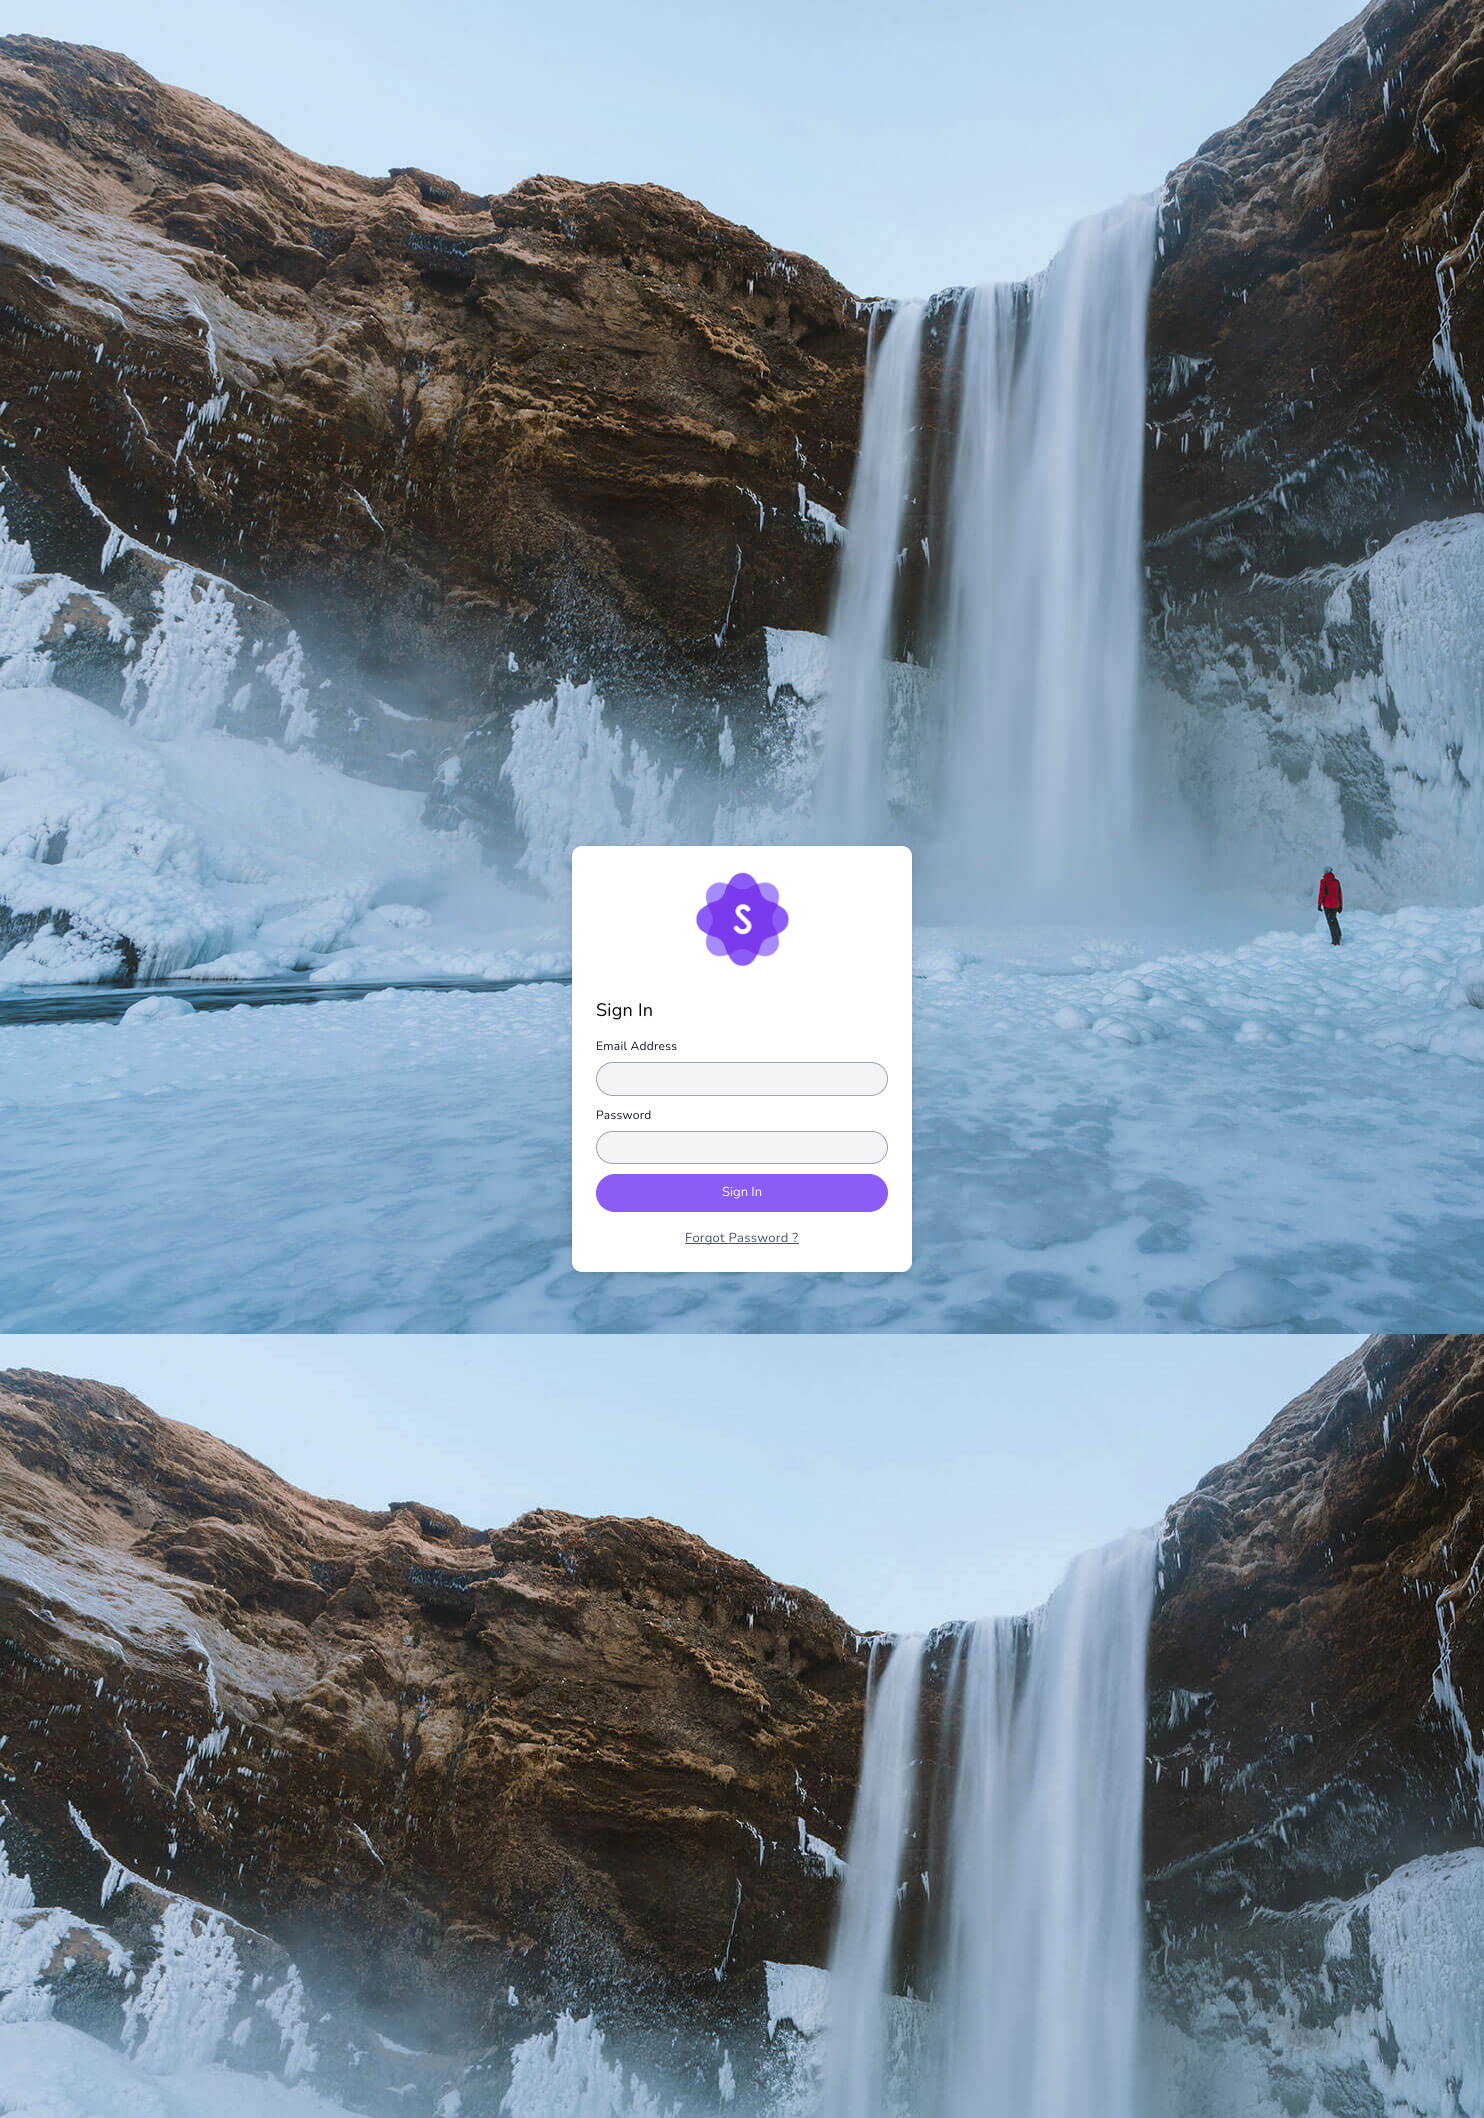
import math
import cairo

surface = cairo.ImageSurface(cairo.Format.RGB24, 1484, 2118)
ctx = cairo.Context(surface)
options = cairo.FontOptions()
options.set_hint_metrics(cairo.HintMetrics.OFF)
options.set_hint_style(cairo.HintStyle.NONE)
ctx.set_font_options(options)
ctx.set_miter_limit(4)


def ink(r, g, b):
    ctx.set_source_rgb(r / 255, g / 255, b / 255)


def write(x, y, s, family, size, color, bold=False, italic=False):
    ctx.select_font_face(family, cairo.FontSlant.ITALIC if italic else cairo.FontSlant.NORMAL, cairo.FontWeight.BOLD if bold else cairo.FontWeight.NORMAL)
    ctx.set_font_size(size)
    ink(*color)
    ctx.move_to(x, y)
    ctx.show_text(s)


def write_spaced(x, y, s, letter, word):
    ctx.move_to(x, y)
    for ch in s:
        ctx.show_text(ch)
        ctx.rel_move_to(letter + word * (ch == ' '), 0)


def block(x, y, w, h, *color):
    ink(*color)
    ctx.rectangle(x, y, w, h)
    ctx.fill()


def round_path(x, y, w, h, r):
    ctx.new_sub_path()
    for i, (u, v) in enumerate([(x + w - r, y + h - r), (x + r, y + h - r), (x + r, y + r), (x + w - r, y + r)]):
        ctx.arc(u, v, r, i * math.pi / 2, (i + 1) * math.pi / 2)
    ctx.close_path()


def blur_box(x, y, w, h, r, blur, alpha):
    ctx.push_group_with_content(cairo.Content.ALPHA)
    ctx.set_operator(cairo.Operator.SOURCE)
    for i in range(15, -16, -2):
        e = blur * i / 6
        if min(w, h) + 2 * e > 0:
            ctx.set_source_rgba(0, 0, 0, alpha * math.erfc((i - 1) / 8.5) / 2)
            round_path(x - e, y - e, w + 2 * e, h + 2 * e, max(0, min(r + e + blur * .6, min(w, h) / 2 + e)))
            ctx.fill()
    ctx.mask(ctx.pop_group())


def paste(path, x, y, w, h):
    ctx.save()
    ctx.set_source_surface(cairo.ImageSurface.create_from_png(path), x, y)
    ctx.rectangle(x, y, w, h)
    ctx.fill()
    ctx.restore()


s1 = dict(family="Nunito", size=13, color=(255, 255, 255))

ink(255, 255, 255)
ctx.paint()
paste("pic1.png", 0, 0, 1484, 2118)
ink(0, 0, 0)
blur_box(572, 847, 340, 426, 10, 2, 0.08)
blur_box(571, 849, 342, 428, 11, 10, 0.06)
ink(255, 255, 255)
round_path(572, 846, 340, 426, 10)
ctx.fill()
paste("pic2.png", 695, 872, 95, 95)
ctx.select_font_face("Nunito")
ctx.set_font_size(18)
ink(5, 7, 11)
write_spaced(596, 1016, "Sign In", 0.25, 0)
ctx.set_font_size(12)
ink(17, 24, 39)
write_spaced(596, 1050, "Email Address", 0.25, 0)
ink(243, 244, 246)
round_path(596.5, 1062.5, 291, 33, 16.5)
ctx.fill_preserve()
ink(156, 163, 175)
ctx.set_line_width(1)
ctx.stroke()
ink(17, 24, 39)
write_spaced(596, 1119, "Password", 0.25, 0)
ink(243, 244, 246)
round_path(596.5, 1131.5, 291, 32, 16)
ctx.fill_preserve()
ink(156, 163, 175)
ctx.stroke()
ink(139, 92, 246)
round_path(596.5, 1174.5, 291, 37, 18.5)
ctx.fill_preserve()
ctx.stroke()
write(722, 1196, "Sign In", **s1)
block(685, 1243, 114, 1, 75, 85, 99)
write_spaced(685, 1242, "Forgot Password ?", 0.25, 0)
surface.write_to_png("screenshot.png")
